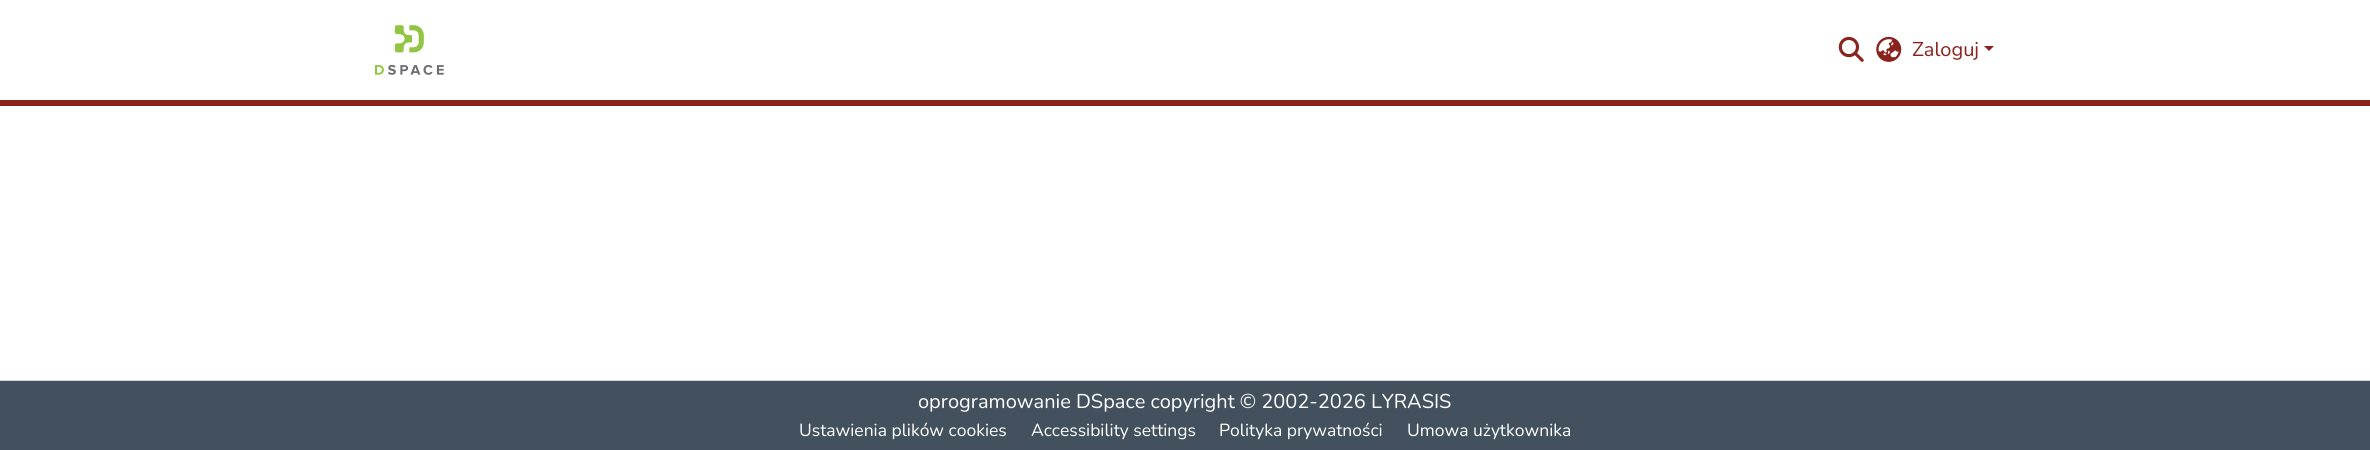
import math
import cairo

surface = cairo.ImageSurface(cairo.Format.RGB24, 2370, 450)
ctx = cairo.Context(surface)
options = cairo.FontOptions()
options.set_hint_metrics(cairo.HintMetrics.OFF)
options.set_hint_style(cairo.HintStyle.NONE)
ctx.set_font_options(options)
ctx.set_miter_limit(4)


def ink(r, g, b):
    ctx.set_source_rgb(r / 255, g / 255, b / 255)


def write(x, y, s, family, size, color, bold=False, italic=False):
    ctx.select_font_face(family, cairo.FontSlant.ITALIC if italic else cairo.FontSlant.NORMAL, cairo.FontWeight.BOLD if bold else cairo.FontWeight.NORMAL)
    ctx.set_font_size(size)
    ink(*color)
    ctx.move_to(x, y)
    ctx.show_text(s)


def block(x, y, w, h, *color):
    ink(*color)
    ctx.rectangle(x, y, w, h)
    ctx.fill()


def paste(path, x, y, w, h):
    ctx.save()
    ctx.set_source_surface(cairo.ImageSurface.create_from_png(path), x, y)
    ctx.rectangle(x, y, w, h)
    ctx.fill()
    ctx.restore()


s1 = dict(family="Nunito", size=20, color=(139, 35, 29))
s2 = dict(family="Nunito", size=20, color=(255, 255, 255))
s3 = dict(family="Nunito", size=17.5, color=(255, 255, 255))

ink(255, 255, 255)
ctx.paint()
block(0, 100, 2370, 6, 139, 35, 29)
paste("pic1.png", 375, 25, 69, 50)
paste("pic2.png", 1838, 36, 26, 26)
paste("pic3.png", 1876, 36, 26, 26)
write(1912, 56, "Zaloguj", **s1)
ctx.new_path()
ctx.move_to(1984, 46)
ctx.line_to(1994, 46)
ctx.line_to(1989, 51)
ctx.close_path()
ctx.fill()
block(0, 381, 2370, 69, 67, 81, 95)
block(0, 380, 2370, 1, 206, 212, 218)
write(918, 408, "oprogramowanie DSpace copyright © 2002-2026 LYRASIS", **s2)
write(799, 436, "Ustawienia plików cookies", **s3)
block(1018, 416, 1, 29, 73, 80, 87)
write(1031, 436, "Accessibility settings", **s3)
block(1206, 416, 1, 29, 73, 80, 87)
write(1219, 436, "Polityka prywatności", **s3)
block(1394, 416, 1, 29, 73, 80, 87)
write(1407, 436, "Umowa użytkownika", **s3)
surface.write_to_png("screenshot.png")
